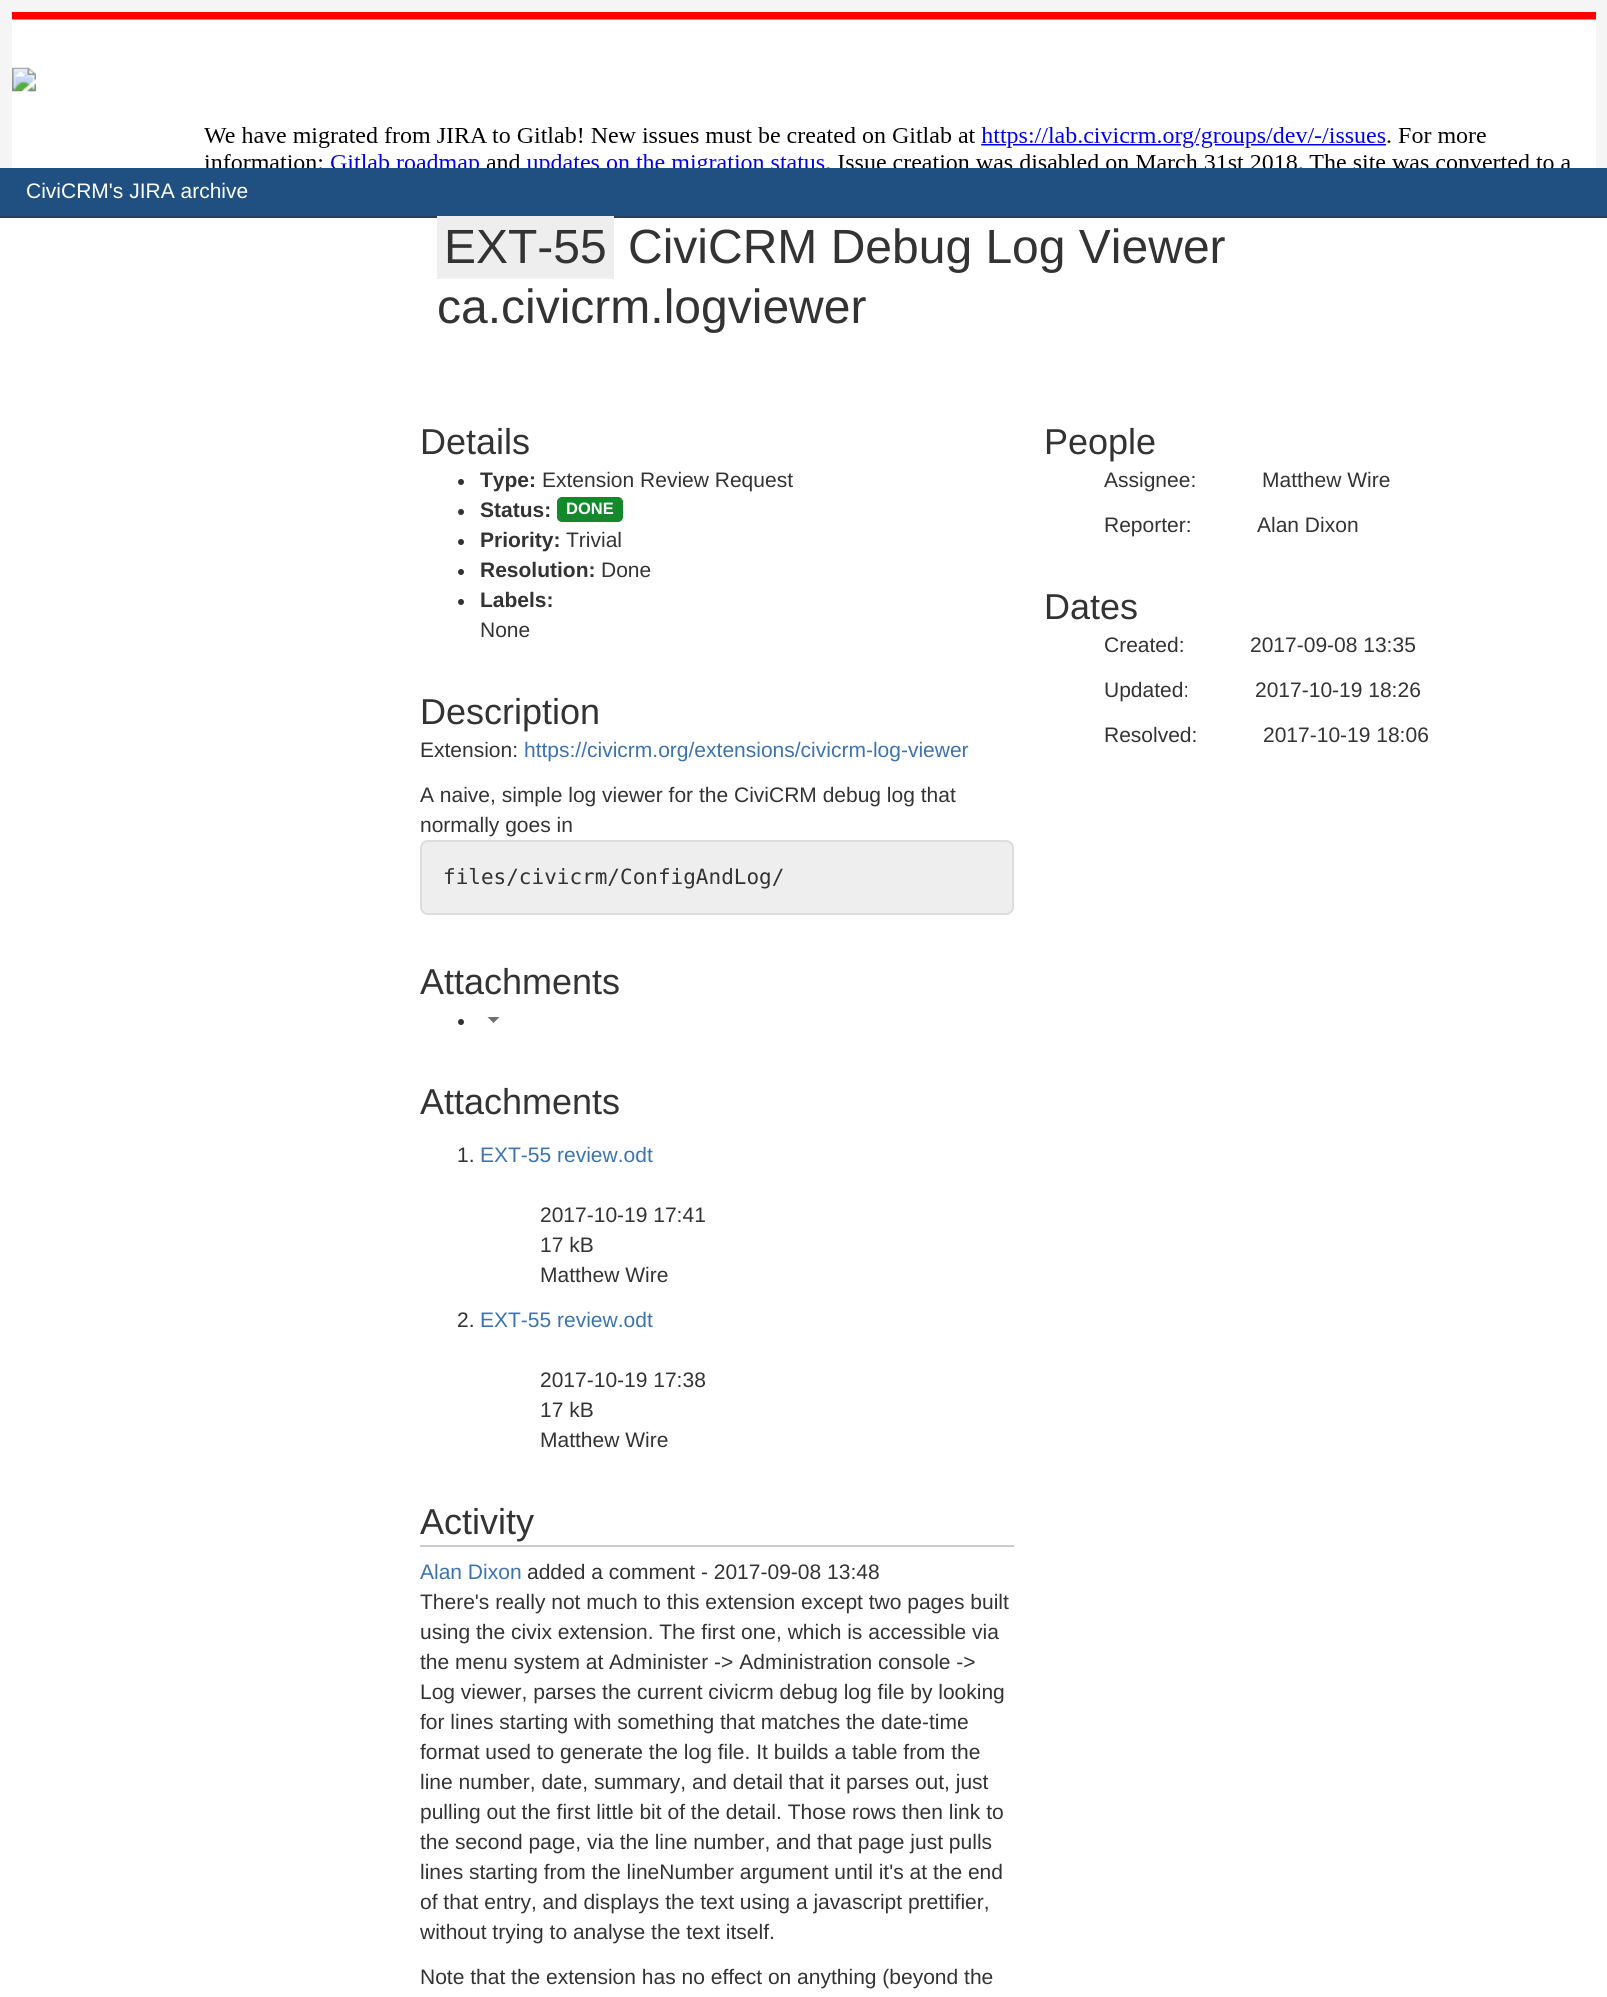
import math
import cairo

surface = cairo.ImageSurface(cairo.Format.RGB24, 1607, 1997)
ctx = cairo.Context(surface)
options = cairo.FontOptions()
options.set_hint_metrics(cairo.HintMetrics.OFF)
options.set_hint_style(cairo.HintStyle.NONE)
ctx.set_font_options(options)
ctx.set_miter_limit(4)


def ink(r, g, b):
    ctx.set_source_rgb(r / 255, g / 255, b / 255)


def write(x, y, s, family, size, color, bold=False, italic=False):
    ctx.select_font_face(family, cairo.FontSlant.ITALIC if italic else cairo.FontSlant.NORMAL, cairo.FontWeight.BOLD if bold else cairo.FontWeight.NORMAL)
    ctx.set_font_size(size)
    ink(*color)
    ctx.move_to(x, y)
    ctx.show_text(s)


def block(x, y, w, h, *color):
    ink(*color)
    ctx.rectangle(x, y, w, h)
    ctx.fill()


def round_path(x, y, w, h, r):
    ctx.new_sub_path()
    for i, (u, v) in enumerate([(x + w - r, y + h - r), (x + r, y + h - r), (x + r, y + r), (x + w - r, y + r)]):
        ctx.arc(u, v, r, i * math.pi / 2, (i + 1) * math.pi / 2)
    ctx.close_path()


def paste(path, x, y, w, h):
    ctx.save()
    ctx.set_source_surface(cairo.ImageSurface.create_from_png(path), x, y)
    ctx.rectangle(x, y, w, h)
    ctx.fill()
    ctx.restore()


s1 = dict(family="Liberation Sans", size=21, color=(255, 255, 255))
s2 = dict(family="Liberation Sans", size=48, color=(51, 51, 51))
s3 = dict(family="Liberation Sans", size=36, color=(51, 51, 51))
s4 = dict(family="Liberation Sans", size=21, color=(51, 51, 51), bold=True)
s5 = dict(family="Liberation Sans", size=21, color=(51, 51, 51))
s6 = dict(family="Liberation Sans", size=16.5, color=(255, 255, 255), bold=True)
s7 = dict(family="Liberation Sans", size=21, color=(59, 115, 175))
s8 = dict(family="DejaVu Sans Mono", size=21, color=(51, 51, 51))

ink(245, 245, 245)
ctx.paint()
paste("pic1.png", 12, 12, 1584, 156)
block(0, 168, 1607, 48, 32, 80, 129)
block(0, 216, 1607, 2, 46, 61, 84)
write(26, 198, "CiviCRM's JIRA archive", **s1)
block(0, 218, 1607, 1779, 255, 255, 255)
block(437, 216, 177, 63, 238, 238, 238)
write(444, 263, "EXT-55", **s2)
write(628, 263, "CiviCRM Debug Log Viewer", **s2)
write(437, 323, "ca.civicrm.logviewer", **s2)
write(420, 454, "Details", **s3)
ctx.new_path()
ctx.arc(461, 482, 3, 0, 2 * math.pi)
ctx.fill()
write(480, 487, "Type:", **s4)
write(542, 487, "Extension Review Request", **s5)
ctx.new_path()
ctx.arc(461, 512, 3, 0, 2 * math.pi)
ctx.fill()
write(480, 517, "Status:", **s4)
ink(20, 137, 44)
round_path(558, 498, 64, 23, 4)
ctx.fill_preserve()
ctx.stroke()
write(566, 514, "DONE", **s6)
ink(51, 51, 51)
ctx.new_path()
ctx.arc(461, 542, 3, 0, 2 * math.pi)
ctx.fill()
write(480, 547, "Priority:", **s4)
write(566, 547, "Trivial", **s5)
ctx.new_path()
ctx.arc(461, 572, 3, 0, 2 * math.pi)
ctx.fill()
write(480, 577, "Resolution:", **s4)
write(601, 577, "Done", **s5)
ctx.new_path()
ctx.arc(461, 602, 3, 0, 2 * math.pi)
ctx.fill()
write(480, 607, "Labels:", **s4)
write(480, 637, "None", **s5)
write(420, 724, "Description", **s3)
write(420, 757, "Extension:", **s5)
write(524, 757, "https://civicrm.org/extensions/civicrm-log-viewer", **s7)
write(420, 802, "A naive, simple log viewer for the CiviCRM debug log that", **s5)
write(420, 832, "normally goes in", **s5)
ink(238, 238, 238)
round_path(421, 841, 592, 73, 7)
ctx.fill_preserve()
ink(221, 221, 221)
ctx.stroke()
write(443, 884, "files/civicrm/ConfigAndLog/", **s8)
write(420, 994, "Attachments", **s3)
ctx.new_path()
ctx.arc(461, 1022, 3, 0, 2 * math.pi)
ctx.fill()
ink(112, 112, 112)
ctx.new_path()
ctx.move_to(487.5, 1017)
ctx.line_to(499.5, 1017)
ctx.line_to(493.5, 1023)
ctx.close_path()
ctx.fill()
write(420, 1114, "Attachments", **s3)
write(457, 1162, "1.", **s5)
write(480, 1162, "EXT-55 review.odt", **s7)
write(540, 1222, "2017-10-19 17:41", **s5)
write(540, 1252, "17 kB", **s5)
write(540, 1282, "Matthew Wire", **s5)
write(457, 1327, "2.", **s5)
write(480, 1327, "EXT-55 review.odt", **s7)
write(540, 1387, "2017-10-19 17:38", **s5)
write(540, 1417, "17 kB", **s5)
write(540, 1447, "Matthew Wire", **s5)
write(420, 1534, "Activity", **s3)
block(420, 1545, 594, 2, 204, 204, 204)
write(420, 1579, "Alan Dixon", **s7)
write(527, 1579, "added a comment - 2017-09-08 13:48", **s5)
write(420, 1609, "There's really not much to this extension except two pages built", **s5)
write(420, 1639, "using the civix extension. The first one, which is accessible via", **s5)
write(420, 1669, "the menu system at Administer -> Administration console ->", **s5)
write(420, 1699, "Log viewer, parses the current civicrm debug log file by looking", **s5)
write(420, 1729, "for lines starting with something that matches the date-time", **s5)
write(420, 1759, "format used to generate the log file. It builds a table from the", **s5)
write(420, 1789, "line number, date, summary, and detail that it parses out, just", **s5)
write(420, 1819, "pulling out the first little bit of the detail. Those rows then link to", **s5)
write(420, 1849, "the second page, via the line number, and that page just pulls", **s5)
write(420, 1879, "lines starting from the lineNumber argument until it's at the end", **s5)
write(420, 1909, "of that entry, and displays the text using a javascript prettifier,", **s5)
write(420, 1939, "without trying to analyse the text itself.", **s5)
write(420, 1984, "Note that the extension has no effect on anything (beyond the", **s5)
write(1044, 454, "People", **s3)
write(1104, 487, "Assignee:", **s5)
write(1262, 487, "Matthew Wire", **s5)
write(1104, 532, "Reporter:", **s5)
write(1257, 532, "Alan Dixon", **s5)
write(1044, 619, "Dates", **s3)
write(1104, 652, "Created:", **s5)
write(1250, 652, "2017-09-08 13:35", **s5)
write(1104, 697, "Updated:", **s5)
write(1255, 697, "2017-10-19 18:26", **s5)
write(1104, 742, "Resolved:", **s5)
write(1263, 742, "2017-10-19 18:06", **s5)
surface.write_to_png("screenshot.png")
